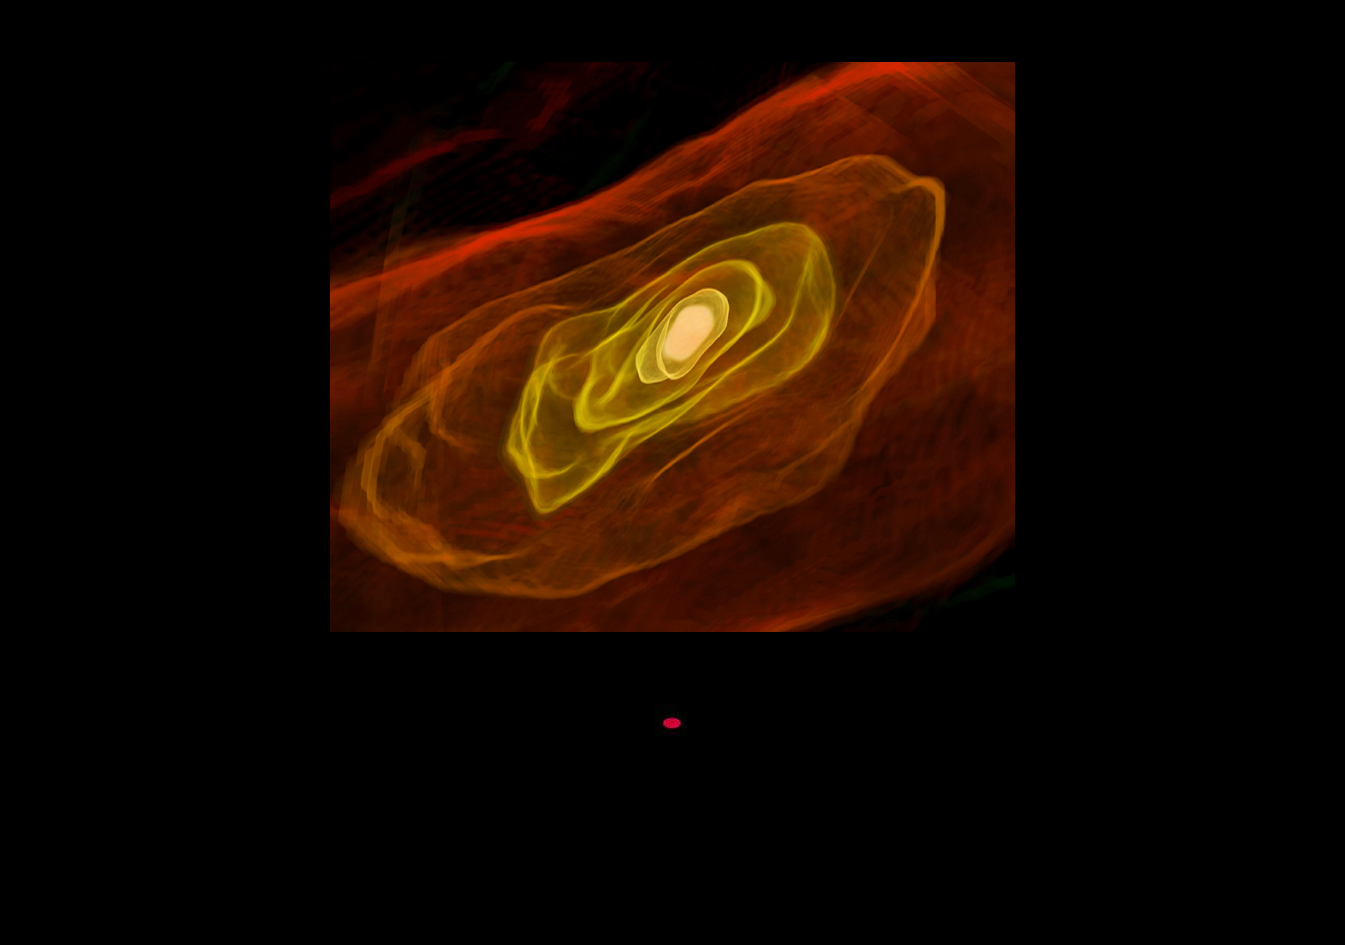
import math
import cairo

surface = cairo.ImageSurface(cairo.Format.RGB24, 1345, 945)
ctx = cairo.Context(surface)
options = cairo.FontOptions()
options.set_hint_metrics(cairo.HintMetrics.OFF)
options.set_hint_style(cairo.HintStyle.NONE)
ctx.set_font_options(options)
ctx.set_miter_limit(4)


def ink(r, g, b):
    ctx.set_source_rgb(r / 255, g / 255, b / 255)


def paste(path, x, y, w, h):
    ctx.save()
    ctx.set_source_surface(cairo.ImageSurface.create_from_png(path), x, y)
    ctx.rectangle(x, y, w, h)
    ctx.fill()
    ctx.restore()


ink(0, 0, 0)
ctx.paint()
paste("pic1.png", 330, 62, 685, 570)
paste("pic2.png", 655, 704, 32, 32)
surface.write_to_png("screenshot.png")
